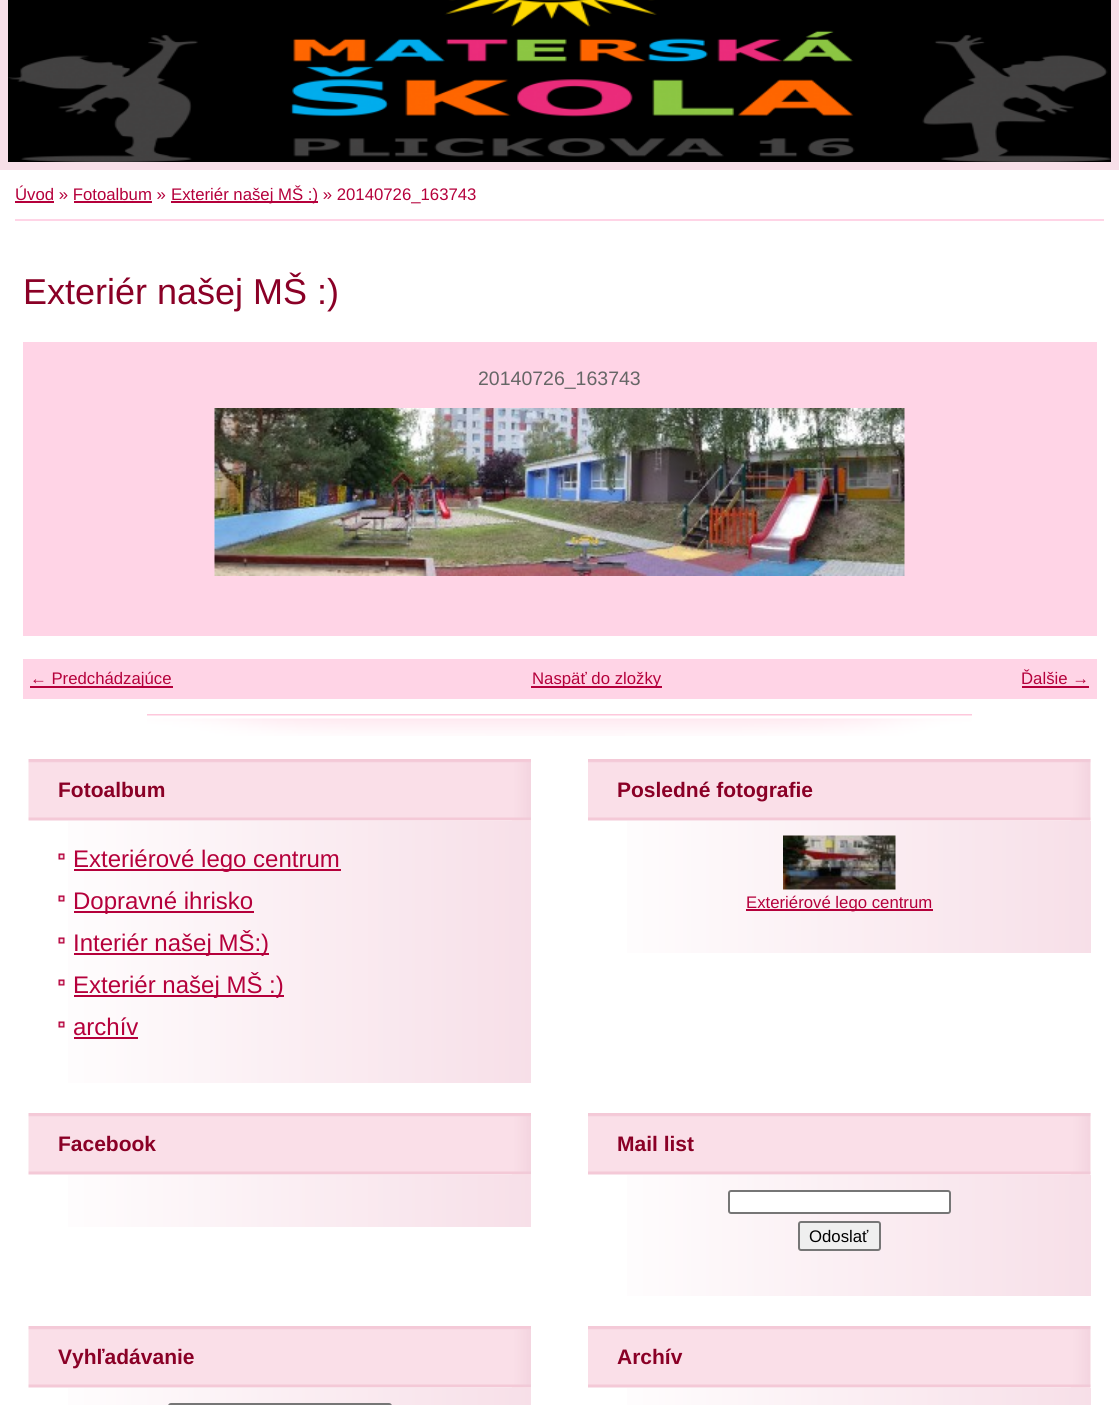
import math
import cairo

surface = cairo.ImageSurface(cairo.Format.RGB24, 1119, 1405)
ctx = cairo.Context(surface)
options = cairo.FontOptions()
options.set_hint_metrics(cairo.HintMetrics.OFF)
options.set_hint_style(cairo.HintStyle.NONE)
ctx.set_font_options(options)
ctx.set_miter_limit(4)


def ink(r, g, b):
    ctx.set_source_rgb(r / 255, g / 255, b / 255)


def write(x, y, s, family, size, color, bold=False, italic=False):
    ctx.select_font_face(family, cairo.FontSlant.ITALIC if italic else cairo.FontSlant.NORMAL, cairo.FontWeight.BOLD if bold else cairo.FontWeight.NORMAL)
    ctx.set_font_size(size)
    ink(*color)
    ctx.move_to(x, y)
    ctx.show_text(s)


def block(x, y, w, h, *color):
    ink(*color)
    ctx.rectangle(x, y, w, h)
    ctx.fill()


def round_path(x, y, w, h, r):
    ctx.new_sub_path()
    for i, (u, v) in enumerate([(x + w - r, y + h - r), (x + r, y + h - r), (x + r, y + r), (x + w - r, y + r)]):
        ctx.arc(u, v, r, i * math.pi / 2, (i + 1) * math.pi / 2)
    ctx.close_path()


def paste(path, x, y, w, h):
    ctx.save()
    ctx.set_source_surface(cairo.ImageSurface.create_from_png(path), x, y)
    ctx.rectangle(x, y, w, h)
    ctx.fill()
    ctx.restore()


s1 = dict(family="Liberation Sans", size=16.75, color=(181, 0, 59))
s2 = dict(family="Liberation Sans", size=36, color=(138, 0, 38))
s3 = dict(family="Liberation Sans", size=19.5, color=(102, 102, 102))
s4 = dict(family="Liberation Sans", size=21, color=(138, 0, 38), bold=True)
s5 = dict(family="Liberation Sans", size=24, color=(181, 0, 59))
s6 = dict(family="Liberation Sans", size=16.75, color=(0, 0, 0))

ink(255, 255, 255)
ctx.paint()
paste("pic1.png", 8, 0, 1103, 162)
ctx.rectangle(4, -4, 1111, 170)
ink(247, 223, 232)
ctx.set_line_width(8)
ctx.stroke()
block(15, 219, 1089, 2, 255, 212, 230)
write(15, 200, "Úvod » Fotoalbum »", **s1)
block(15, 201, 39, 2, 181, 0, 59)
block(171, 201, 147, 2, 181, 0, 59)
write(171, 200, "Exteriér našej MŠ :) » 20140726_163743", **s1)
block(74, 201, 78, 2, 181, 0, 59)
paste("pic2.png", 147, 714, 825, 22)
write(23, 304, "Exteriér našej MŠ :)", **s2)
block(23, 342, 1074, 294, 255, 212, 230)
write(478, 385, "20140726_163743", **s3)
paste("pic3.png", 214, 408, 691, 168)
block(23, 659, 1074, 40, 255, 212, 230)
block(30, 686, 143, 2, 181, 0, 59)
write(30, 684, "← Predchádzajúce", **s1)
block(531, 686, 131, 2, 181, 0, 59)
write(532, 684, "Naspäť do zložky", **s1)
write(1021, 684, "Ďalšie →", **s1)
block(1022, 686, 67, 2, 181, 0, 59)
paste("pic4.png", 28, 759, 503, 62)
write(58, 797, "Fotoalbum", **s4)
paste("pic5.png", 512, 762, 19, 59)
gradient = cairo.LinearGradient(29, 952, 531, 952)
gradient.add_color_stop_rgba(0, 1, 1, 1, 1)
gradient.add_color_stop_rgba(1, 0.969, 0.875, 0.91, 1)
ctx.set_source(gradient)
ctx.rectangle(68, 821, 463, 262)
ctx.fill()
paste("pic6.png", 58, 853, 7, 7)
block(74, 869, 267, 2, 181, 0, 59)
write(73, 867, "Exteriérové lego centrum", **s5)
paste("pic6.png", 58, 895, 7, 7)
block(74, 911, 180, 2, 181, 0, 59)
write(73, 909, "Dopravné ihrisko", **s5)
paste("pic6.png", 58, 937, 7, 7)
block(74, 953, 195, 2, 181, 0, 59)
write(73, 951, "Interiér našej MŠ:)", **s5)
paste("pic6.png", 58, 979, 7, 7)
block(74, 995, 210, 2, 181, 0, 59)
write(73, 993, "Exteriér našej MŠ :)", **s5)
paste("pic6.png", 58, 1021, 7, 7)
write(73, 1035, "archív", **s5)
block(74, 1037, 64, 2, 181, 0, 59)
paste("pic7.png", 588, 759, 503, 62)
write(617, 797, "Posledné fotografie", **s4)
paste("pic8.png", 1071, 759, 20, 62)
gradient = cairo.LinearGradient(588, 887, 1091, 887)
gradient.add_color_stop_rgba(0, 1, 1, 1, 1)
gradient.add_color_stop_rgba(1, 0.969, 0.875, 0.91, 1)
ctx.set_source(gradient)
ctx.rectangle(627, 821, 464, 132)
ctx.fill()
paste("pic9.png", 783, 835, 113, 55)
block(746, 909, 187, 2, 181, 0, 59)
write(746, 908, "Exteriérové lego centrum", **s1)
paste("pic4.png", 28, 1113, 503, 62)
write(58, 1151, "Facebook", **s4)
paste("pic5.png", 512, 1116, 19, 59)
gradient = cairo.LinearGradient(29, 1201, 531, 1201)
gradient.add_color_stop_rgba(0, 1, 1, 1, 1)
gradient.add_color_stop_rgba(1, 0.969, 0.875, 0.91, 1)
ctx.set_source(gradient)
ctx.rectangle(68, 1175, 463, 52)
ctx.fill()
paste("pic7.png", 588, 1113, 503, 62)
write(617, 1151, "Mail list", **s4)
paste("pic8.png", 1071, 1113, 20, 62)
gradient = cairo.LinearGradient(588, 1235, 1091, 1235)
gradient.add_color_stop_rgba(0, 1, 1, 1, 1)
gradient.add_color_stop_rgba(1, 0.969, 0.875, 0.91, 1)
ctx.set_source(gradient)
ctx.rectangle(627, 1175, 464, 121)
ctx.fill()
ink(255, 255, 255)
round_path(729, 1191, 221, 22, 2)
ctx.fill_preserve()
ink(118, 118, 118)
ctx.set_line_width(2)
ctx.stroke()
ink(239, 239, 239)
round_path(799, 1222, 81, 28, 2)
ctx.fill_preserve()
ink(118, 118, 118)
ctx.stroke()
write(809, 1242, "Odoslať", **s6)
paste("pic4.png", 28, 1326, 503, 62)
write(58, 1364, "Vyhľadávanie", **s4)
paste("pic5.png", 512, 1329, 19, 59)
gradient = cairo.LinearGradient(29, 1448, 531, 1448)
gradient.add_color_stop_rgba(0, 1, 1, 1, 1)
gradient.add_color_stop_rgba(1, 0.969, 0.875, 0.91, 1)
ctx.set_source(gradient)
ctx.rectangle(68, 1388, 463, 17)
ctx.fill()
round_path(169, 1404, 222, 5, 2)
ink(118, 118, 118)
ctx.stroke()
paste("pic7.png", 588, 1326, 503, 62)
write(617, 1364, "Archív", **s4)
paste("pic8.png", 1071, 1326, 20, 62)
gradient = cairo.LinearGradient(588, 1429, 1091, 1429)
gradient.add_color_stop_rgba(0, 1, 1, 1, 1)
gradient.add_color_stop_rgba(1, 0.969, 0.875, 0.91, 1)
ctx.set_source(gradient)
ctx.rectangle(627, 1388, 464, 17)
ctx.fill()
surface.write_to_png("screenshot.png")
